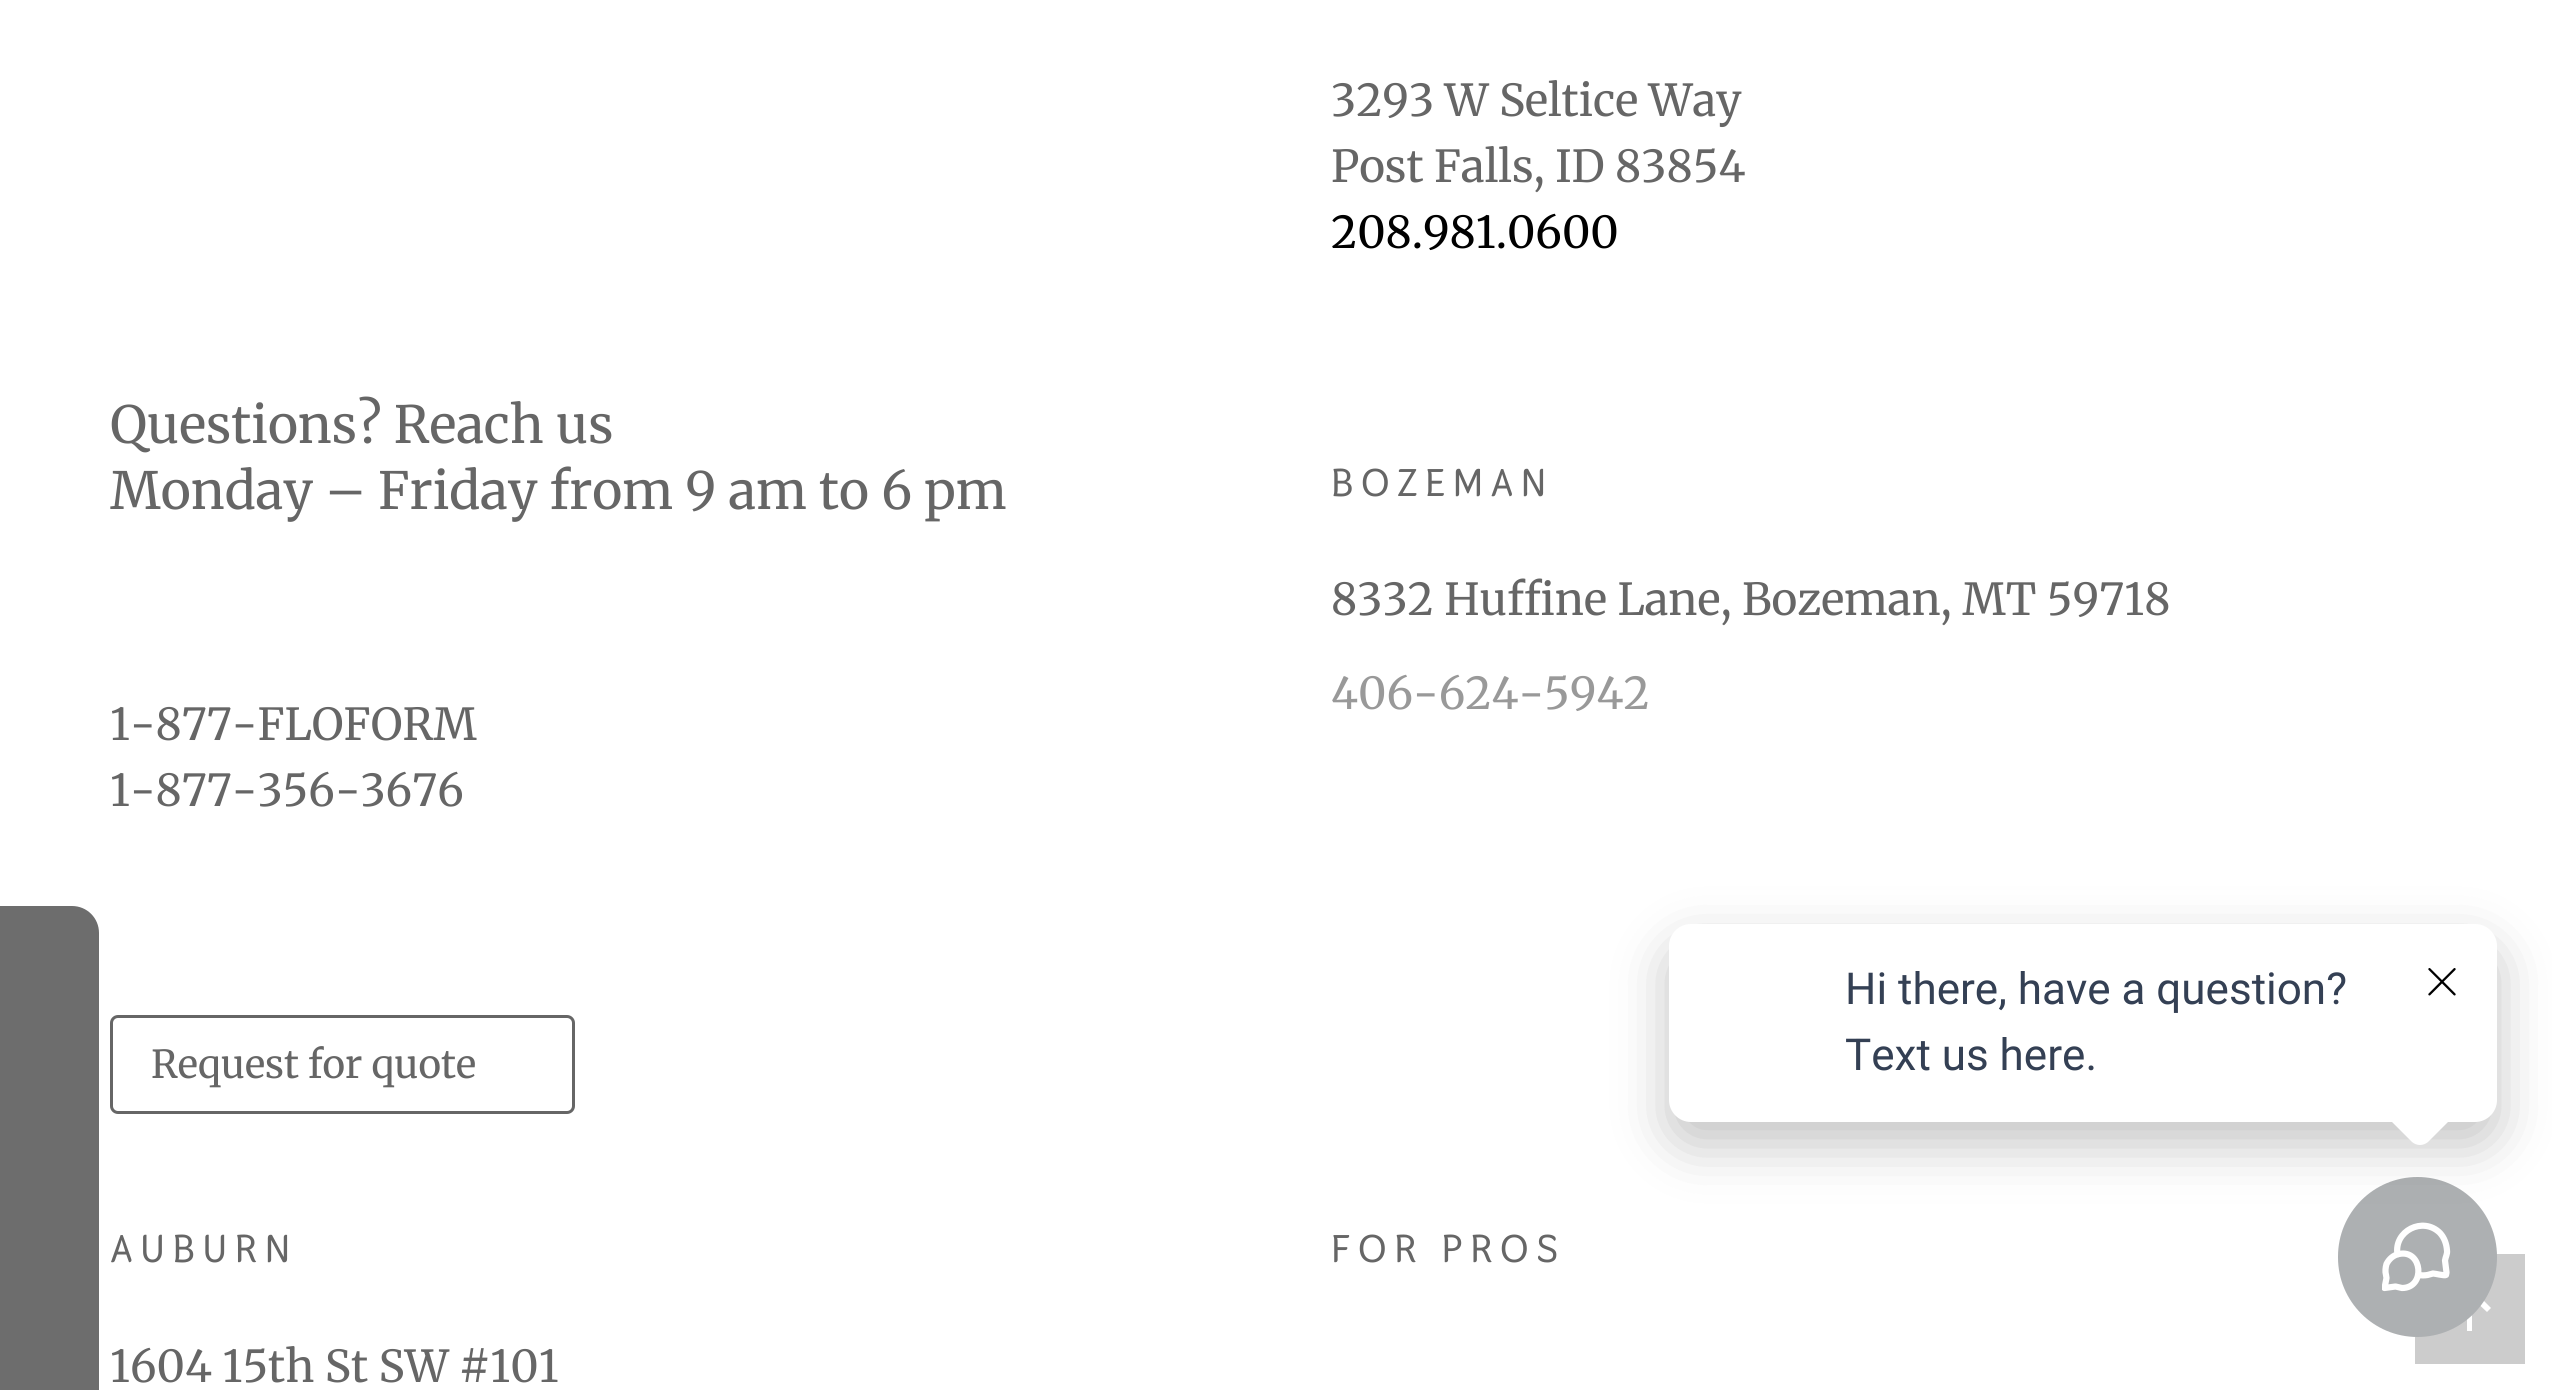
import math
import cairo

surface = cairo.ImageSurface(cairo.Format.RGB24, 2552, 1390)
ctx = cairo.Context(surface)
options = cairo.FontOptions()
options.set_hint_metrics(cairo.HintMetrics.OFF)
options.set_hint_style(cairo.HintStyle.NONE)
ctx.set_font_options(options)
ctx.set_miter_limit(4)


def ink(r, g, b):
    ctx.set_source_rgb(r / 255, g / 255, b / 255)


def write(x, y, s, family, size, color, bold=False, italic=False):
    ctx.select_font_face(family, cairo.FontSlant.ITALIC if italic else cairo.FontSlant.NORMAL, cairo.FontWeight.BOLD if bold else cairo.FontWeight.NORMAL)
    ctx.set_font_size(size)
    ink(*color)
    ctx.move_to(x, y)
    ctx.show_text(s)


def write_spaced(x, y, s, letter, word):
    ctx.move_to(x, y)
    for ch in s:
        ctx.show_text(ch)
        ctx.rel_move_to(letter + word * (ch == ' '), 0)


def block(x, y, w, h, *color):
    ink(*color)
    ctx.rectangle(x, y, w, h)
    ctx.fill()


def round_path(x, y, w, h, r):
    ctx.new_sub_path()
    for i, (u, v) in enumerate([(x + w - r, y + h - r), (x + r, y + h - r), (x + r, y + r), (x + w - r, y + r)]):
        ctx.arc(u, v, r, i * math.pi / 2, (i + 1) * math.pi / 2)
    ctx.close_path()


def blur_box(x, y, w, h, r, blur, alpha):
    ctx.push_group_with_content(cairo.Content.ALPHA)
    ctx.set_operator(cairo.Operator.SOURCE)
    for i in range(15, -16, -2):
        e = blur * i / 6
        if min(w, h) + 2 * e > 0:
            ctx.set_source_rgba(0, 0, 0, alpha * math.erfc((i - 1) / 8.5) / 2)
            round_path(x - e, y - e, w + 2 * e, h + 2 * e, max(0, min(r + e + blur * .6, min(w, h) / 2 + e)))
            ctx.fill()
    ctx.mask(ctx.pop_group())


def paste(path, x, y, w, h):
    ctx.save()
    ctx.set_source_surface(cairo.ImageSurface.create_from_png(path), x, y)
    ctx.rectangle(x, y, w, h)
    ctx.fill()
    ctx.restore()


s1 = dict(family="Merriweather", size=51.3, color=(102, 102, 102))
s2 = dict(family="Merriweather", size=44, color=(102, 102, 102))
s3 = dict(family="Merriweather", size=38.5, color=(102, 102, 102))
s4 = dict(family="Merriweather", size=44, color=(0, 0, 0))
s5 = dict(family="Merriweather", size=44, color=(153, 153, 153))
s6 = dict(family="Roboto", size=44, color=(52, 64, 84))

ink(255, 255, 255)
ctx.paint()
ink(109, 109, 109)
ctx.new_path()
ctx.move_to(-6, 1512)
ctx.line_to(-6, 906)
ctx.line_to(72, 906)
ctx.curve_to(87, 906, 99, 918, 99, 933)
ctx.line_to(99, 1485)
ctx.curve_to(99, 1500, 87, 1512, 72, 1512)
ctx.close_path()
ctx.fill()
write(110, 443, "Questions? Reach us", **s1)
write(110, 509, "Monday – Friday from 9 am to 6 pm", **s1)
write(110, 740, "1-877-FLOFORM", **s2)
write(110, 806, "1-877-356-3676", **s2)
round_path(111.5, 1016.5, 462, 96, 6.5)
ctx.set_line_width(3)
ctx.stroke()
write(151, 1078, "Request for quote", **s3)
write(1331, 116, "3293 W Seltice Way", **s2)
write(1331, 182, "Post Falls, ID 83854", **s2)
write(1331, 248, "208.981.0600", **s4)
ctx.select_font_face("Thasadith", cairo.FontSlant.NORMAL, cairo.FontWeight.BOLD)
ctx.set_font_size(38.5)
ink(102, 102, 102)
write_spaced(1331, 496, "BOZEMAN", 7.75, 0)
write(1331, 615, "8332 Huffine Lane, Bozeman, MT 59718", **s2)
write(1331, 709, "406-624-5942", **s5)
ctx.select_font_face("Thasadith", cairo.FontSlant.NORMAL, cairo.FontWeight.BOLD)
ctx.set_font_size(38.5)
ink(102, 102, 102)
write_spaced(110, 1262, "AUBURN", 7.75, 0)
write(110, 1382, "1604 15th St SW #101", **s2)
ctx.select_font_face("Thasadith", cairo.FontSlant.NORMAL, cairo.FontWeight.BOLD)
ctx.set_font_size(38.5)
write_spaced(1331, 1262, "FOR PROS", 7.75, 0)
block(2415, 1254, 110, 110, 204, 204, 204)
ink(255, 255, 255)
ctx.new_path()
ctx.move_to(2472, 1298)
ctx.line_to(2472, 1331)
ctx.line_to(2467, 1331)
ctx.line_to(2467, 1298)
ctx.line_to(2452, 1312)
ctx.line_to(2448, 1308)
ctx.line_to(2470, 1287)
ctx.line_to(2491, 1308)
ctx.line_to(2487, 1312)
ctx.close_path()
ctx.fill()
ink(173, 176, 178)
round_path(2338, 1177, 159, 160, 79.5)
ctx.fill()
ctx.save()
ctx.rectangle(2382, 1221, 71, 72)
ctx.clip()
ctx.new_path()
ctx.move_to(2397.5, 1254.5)
ctx.curve_to(2393.5, 1231, 2423, 1216, 2440, 1233)
ctx.curve_to(2444.5, 1238, 2446.5, 1244, 2447, 1250.5)
ctx.curve_to(2447.5, 1254, 2445.5, 1257, 2445, 1260.5)
ctx.line_to(2446.5, 1272.5)
ctx.line_to(2446, 1275)
ctx.curve_to(2444.5, 1276, 2435, 1273.5, 2433, 1273.5)
ctx.line_to(2427.5, 1275)
ctx.curve_to(2424.5, 1275.5, 2421.5, 1275.5, 2418.5, 1275)
ctx.move_to(2402, 1288)
ctx.curve_to(2426, 1288, 2422.5, 1249, 2399, 1254)
ctx.curve_to(2393.5, 1255, 2389, 1259, 2386.5, 1264)
ctx.curve_to(2385.5, 1267.5, 2385, 1271.5, 2386, 1275)
ctx.line_to(2386.5, 1278)
ctx.line_to(2384.5, 1288)
ctx.line_to(2395.5, 1286.5)
ctx.close_path()
ink(255, 255, 255)
ctx.set_line_width(6.2)
ctx.set_line_cap(cairo.LineCap.ROUND)
ctx.set_line_join(cairo.LineJoin.ROUND)
ctx.stroke()
ctx.restore()
ink(0, 0, 0)
blur_box(1669, 946, 828, 198, 22, 27.5, 0.24)
ink(255, 255, 255)
round_path(1669, 924, 828, 198, 22)
ctx.fill()
write(1845, 1004, "Hi there, have a question?", **s6)
write(1845, 1070, "Text us here.", **s6)
ink(255, 255, 255)
ctx.new_path()
ctx.move_to(2428, 1080)
ctx.line_to(2451, 1103)
ctx.curve_to(2455, 1108, 2455, 1114, 2451, 1119)
ctx.line_to(2428, 1142)
ctx.curve_to(2423, 1146, 2417, 1146, 2412, 1142)
ctx.line_to(2389, 1119)
ctx.curve_to(2385, 1114, 2385, 1108, 2389, 1103)
ctx.line_to(2412, 1080)
ctx.curve_to(2417, 1076, 2423, 1076, 2428, 1080)
ctx.close_path()
ctx.fill()
paste("pic1.png", 2428, 968, 28, 28)
surface.write_to_png("screenshot.png")
